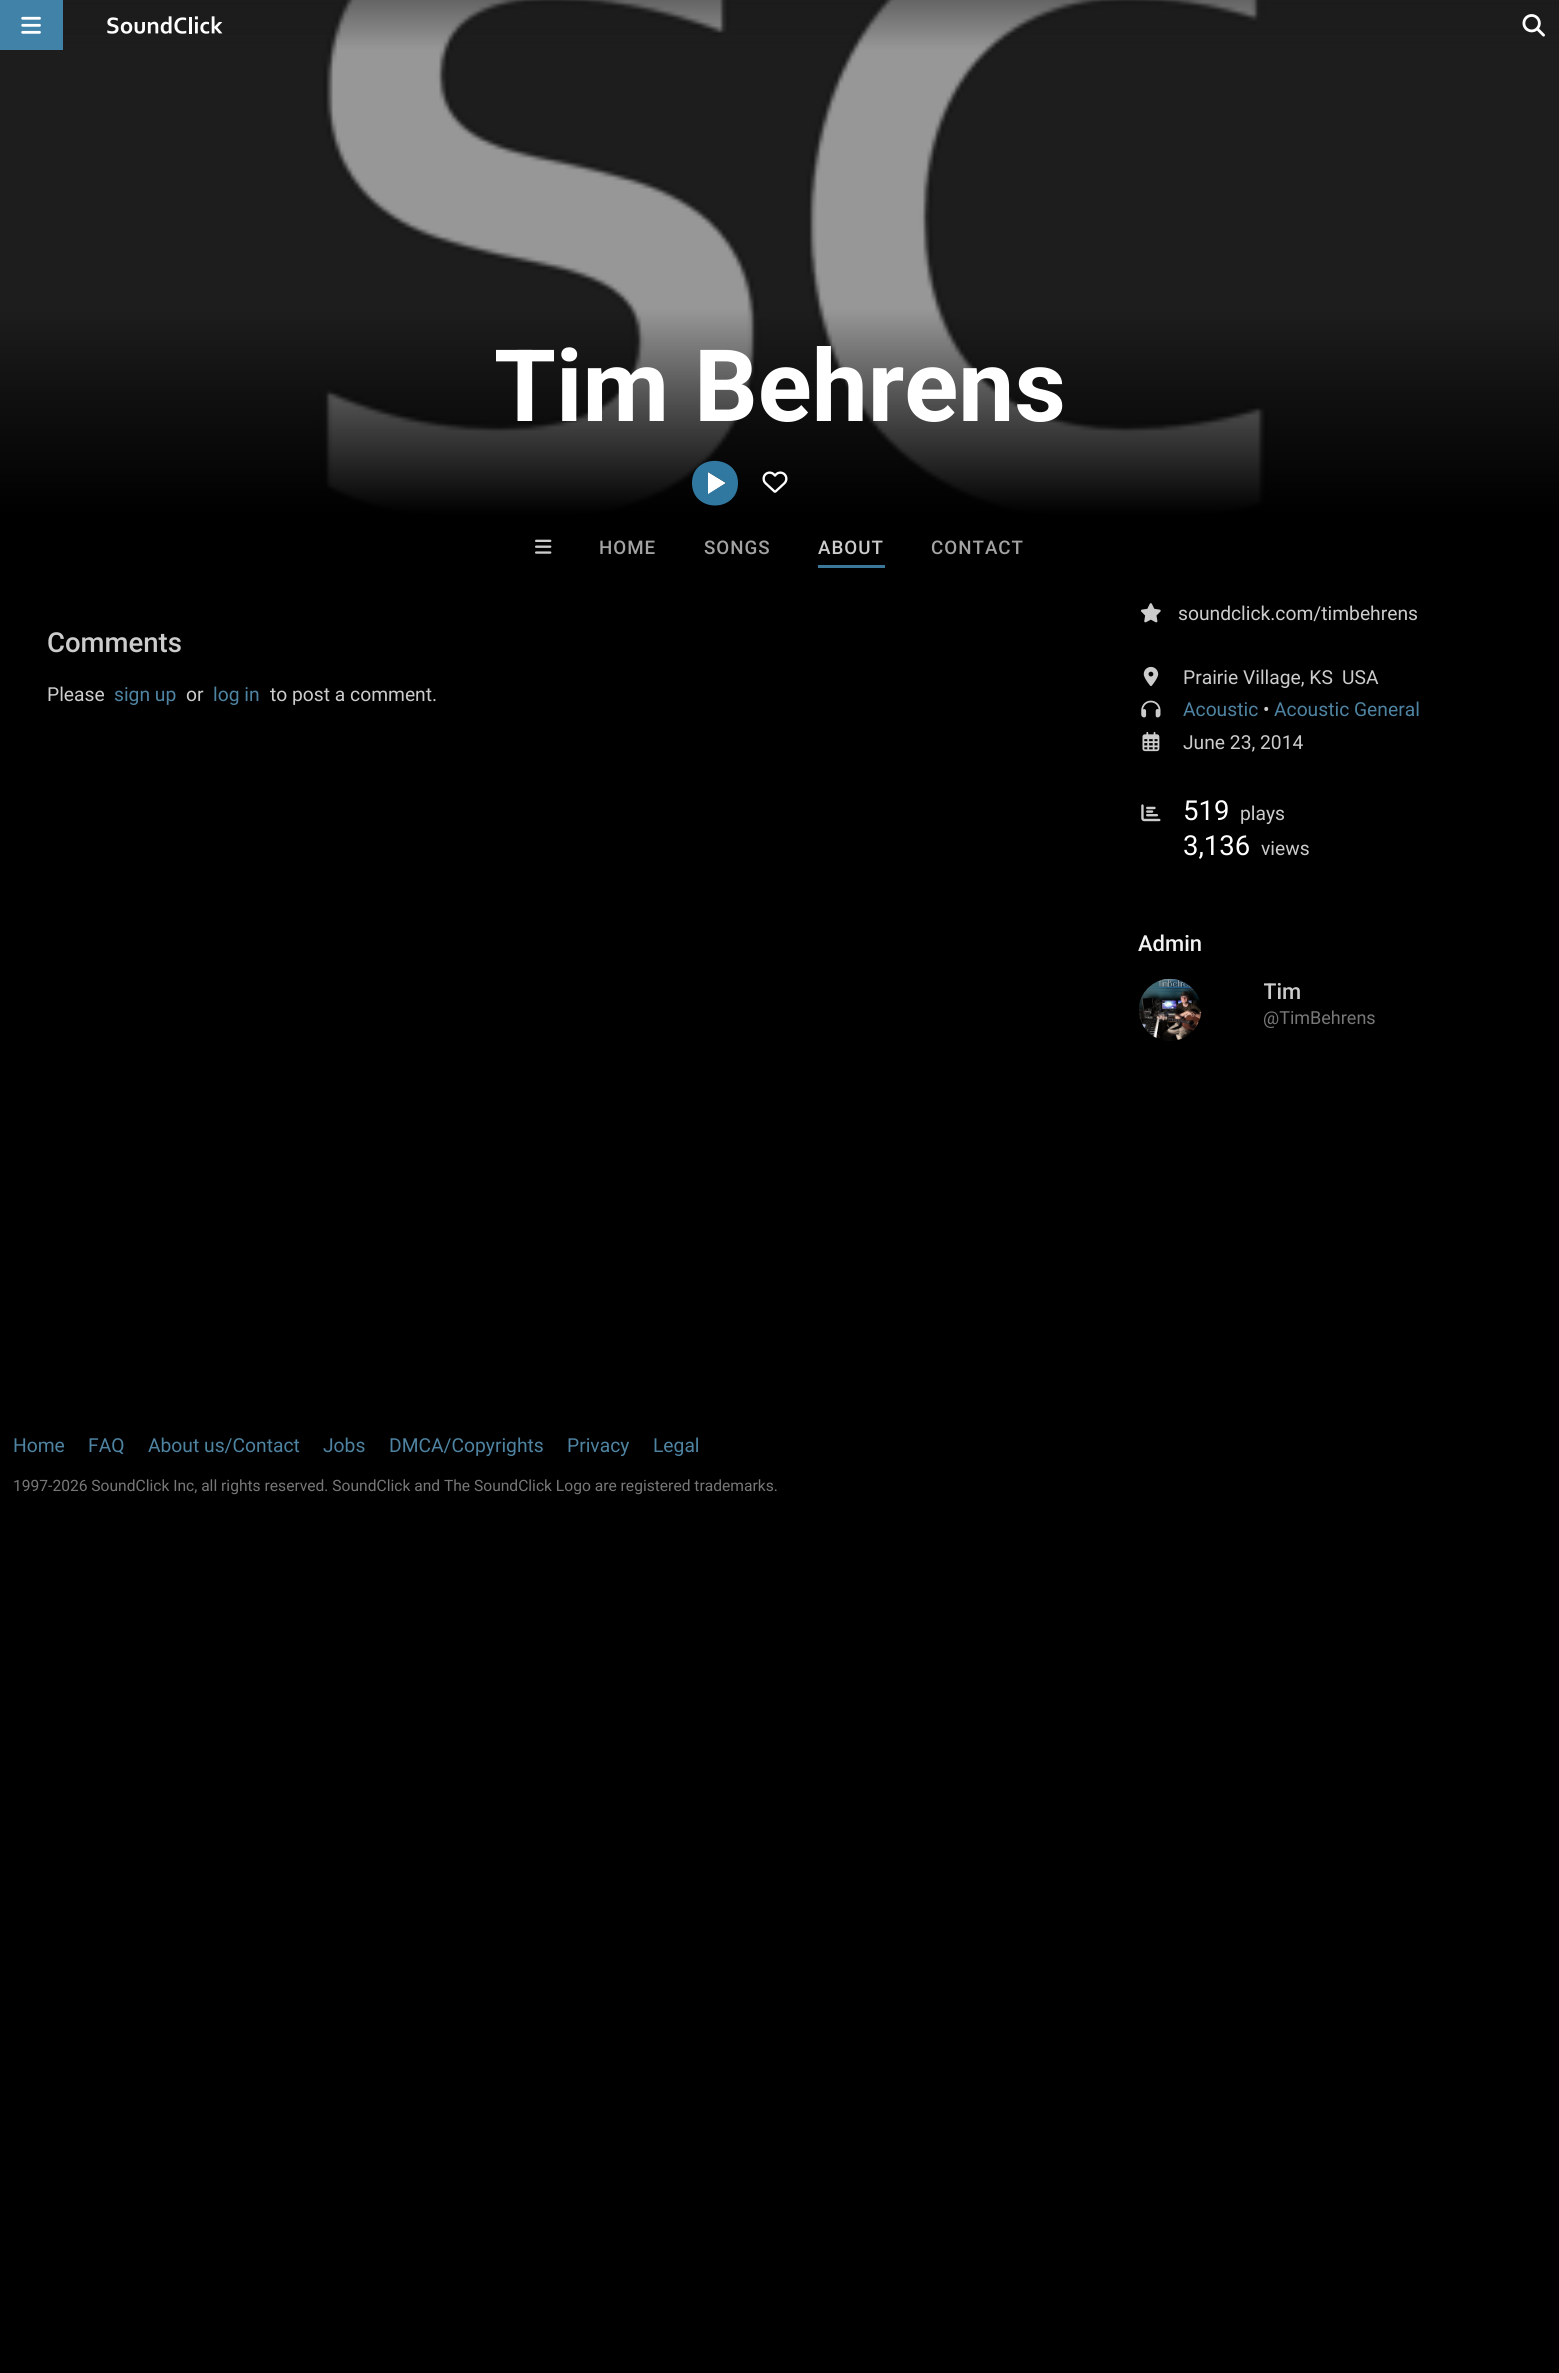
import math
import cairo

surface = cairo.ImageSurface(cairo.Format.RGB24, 1559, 2373)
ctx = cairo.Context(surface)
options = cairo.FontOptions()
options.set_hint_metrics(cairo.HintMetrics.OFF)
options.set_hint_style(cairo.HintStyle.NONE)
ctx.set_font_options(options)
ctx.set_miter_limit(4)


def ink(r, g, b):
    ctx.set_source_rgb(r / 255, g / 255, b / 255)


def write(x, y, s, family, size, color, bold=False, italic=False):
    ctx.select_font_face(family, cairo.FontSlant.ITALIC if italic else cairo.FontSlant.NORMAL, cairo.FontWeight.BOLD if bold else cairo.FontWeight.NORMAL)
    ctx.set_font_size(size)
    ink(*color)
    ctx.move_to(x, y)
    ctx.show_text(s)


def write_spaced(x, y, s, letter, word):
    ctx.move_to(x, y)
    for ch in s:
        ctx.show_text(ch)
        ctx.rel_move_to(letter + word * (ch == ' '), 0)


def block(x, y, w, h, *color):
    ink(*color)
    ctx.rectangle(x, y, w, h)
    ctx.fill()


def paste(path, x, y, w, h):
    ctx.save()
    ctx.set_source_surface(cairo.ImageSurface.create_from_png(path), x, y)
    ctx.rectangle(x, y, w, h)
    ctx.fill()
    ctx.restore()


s1 = dict(family="Roboto", size=100, color=(255, 255, 255), bold=True)
s2 = dict(family="Roboto Medium", size=27.5, color=(204, 204, 204))
s3 = dict(family="Roboto", size=19.25, color=(204, 204, 204))
s4 = dict(family="Roboto", size=19.25, color=(78, 131, 161))
s5 = dict(family="Roboto", size=27.5, color=(255, 255, 255))
s6 = dict(family="Roboto Medium", size=22, color=(242, 242, 242))
s7 = dict(family="Roboto Medium", size=22, color=(204, 204, 204))
s8 = dict(family="Roboto", size=18, color=(119, 119, 119))
s9 = dict(family="Roboto", size=15.6, color=(119, 119, 119))

ink(0, 0, 0)
ctx.paint()
paste("pic4.png", 0, 0, 1559, 515)
block(0, 0, 63, 50, 65, 131, 168)
paste("pic1.png", 21, 16, 20, 18)
paste("pic2.png", 107, 16, 116, 18)
paste("pic3.png", 1522, 14, 23, 23)
write(494, 421, "Tim Behrens", **s1)
ctx.new_path()
ctx.move_to(708, 494.5)
ctx.line_to(708, 472)
ctx.line_to(726, 483)
ctx.close_path()
ctx.fill()
ctx.set_source_rgba(0.212, 0.522, 0.698, 0.9)
ctx.new_path()
ctx.move_to(692, 483)
ctx.curve_to(692, 513, 738, 513, 738, 483)
ctx.curve_to(738, 454, 692, 453, 692, 483)
ctx.close_path()
ctx.move_to(708, 472)
ctx.line_to(726, 483)
ctx.line_to(708, 494)
ctx.close_path()
ctx.fill()
paste("pic5.png", 762, 471, 26, 22)
paste("pic6.png", 535, 539, 17, 15)
ctx.select_font_face("Roboto Medium")
ctx.set_font_size(18.75)
ink(163, 163, 163)
write_spaced(599, 554, "HOME", 1, 0)
write_spaced(704, 554, "SONGS", 1, 0)
block(818, 565, 67, 3, 59, 119, 153)
ink(204, 204, 204)
write_spaced(818, 554, "ABOUT", 1, 0)
ink(163, 163, 163)
write_spaced(931, 554, "CONTACT", 1, 0)
write(47, 652, "Comments", **s2)
write(47, 701, "Please", **s3)
write(114, 701, "sign up", **s4)
write(186, 701, "or", **s3)
write(213, 701, "log in", **s4)
write(270, 701, "to post a comment.", **s3)
paste("pic7.png", 1140, 603, 21, 20)
write(1178, 620, "soundclick.com/timbehrens", **s3)
paste("pic8.png", 1143, 666, 16, 21)
write(1183, 684, "Prairie Village, KS", **s3)
write(1342, 684, "USA", **s3)
paste("pic9.png", 1141, 700, 20, 18)
write(1183, 716, "Acoustic", **s4)
write(1263, 716, "•", **s3)
write(1274, 716, "Acoustic General", **s4)
paste("pic10.png", 1142, 731, 18, 21)
write(1183, 749, "June 23, 2014", **s3)
paste("pic11.png", 1141, 804, 20, 18)
write(1183, 820, "519", **s5)
write(1240, 820, "plays", **s3)
write(1183, 855, "3,136", **s5)
write(1261, 855, "views", **s3)
write(1138, 951, "Admin", **s6)
paste("pic12.png", 1139, 978, 63, 63)
ctx.save()
ctx.rectangle(1264, 979, 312, 26)
ctx.clip()
write(1263, 999, "Tim", **s7)
ctx.restore()
write(1263, 1024, "@TimBehrens", **s8)
write(13, 1452, "Home", **s4)
write(88, 1452, "FAQ", **s4)
write(148, 1452, "About us/Contact", **s4)
write(323, 1452, "Jobs", **s4)
write(389, 1452, "DMCA/Copyrights", **s4)
write(567, 1452, "Privacy", **s4)
write(653, 1452, "Legal", **s4)
write(13, 1491, "1997-2026 SoundClick Inc, all rights reserved. SoundClick and The SoundClick Logo are registered trademarks.", **s9)
surface.write_to_png("screenshot.png")
